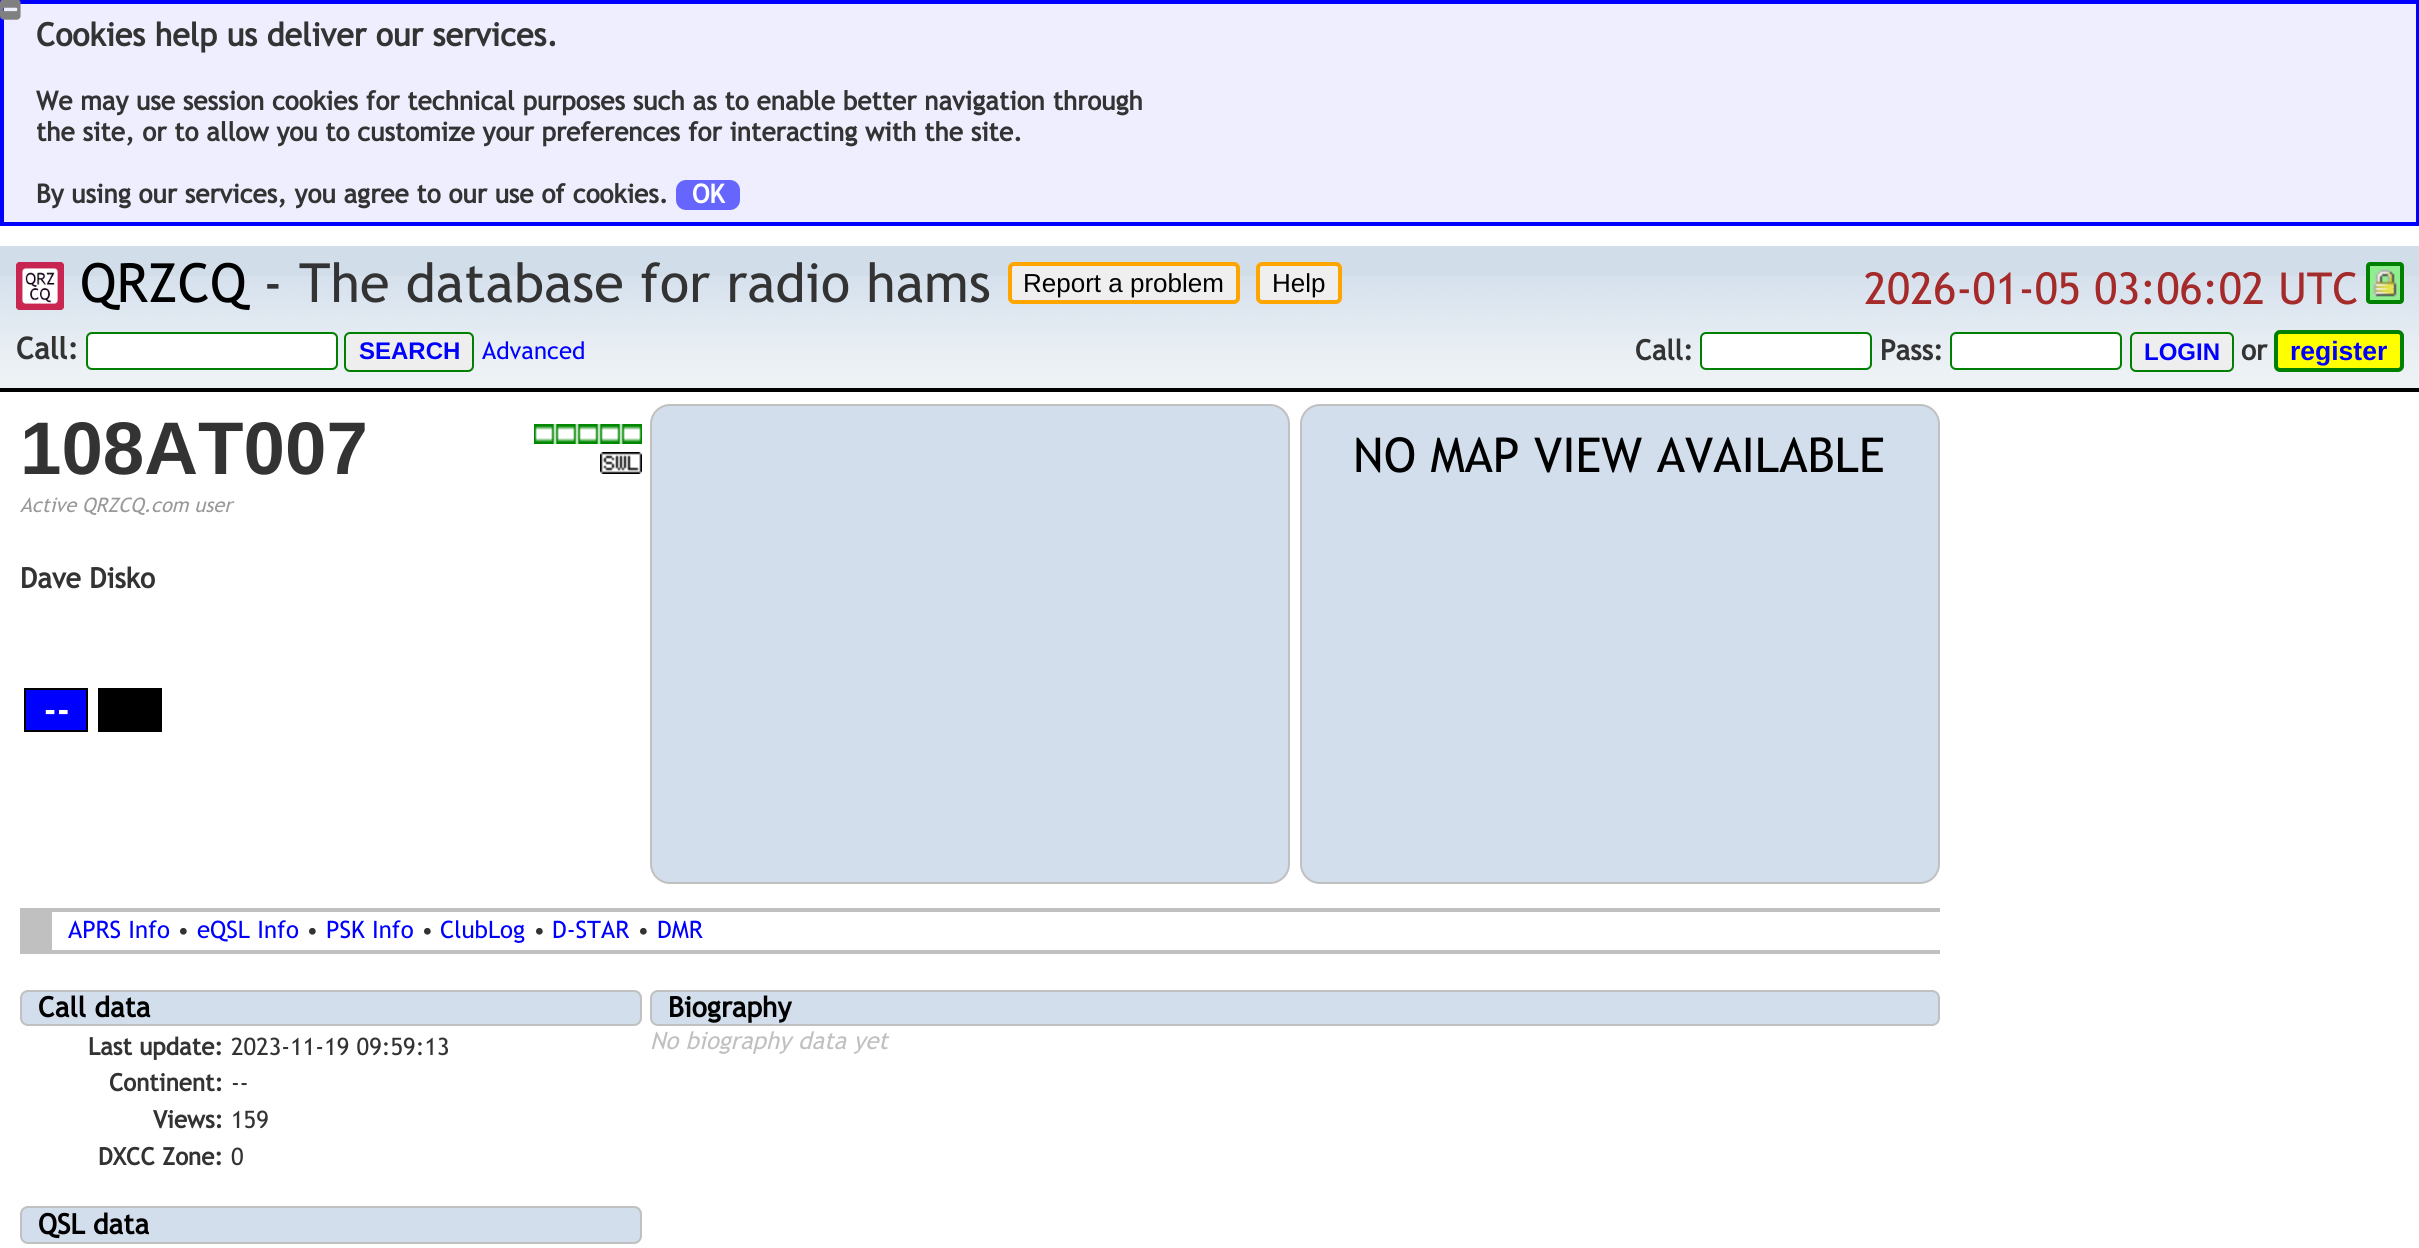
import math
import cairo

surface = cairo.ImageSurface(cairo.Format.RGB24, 2419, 1248)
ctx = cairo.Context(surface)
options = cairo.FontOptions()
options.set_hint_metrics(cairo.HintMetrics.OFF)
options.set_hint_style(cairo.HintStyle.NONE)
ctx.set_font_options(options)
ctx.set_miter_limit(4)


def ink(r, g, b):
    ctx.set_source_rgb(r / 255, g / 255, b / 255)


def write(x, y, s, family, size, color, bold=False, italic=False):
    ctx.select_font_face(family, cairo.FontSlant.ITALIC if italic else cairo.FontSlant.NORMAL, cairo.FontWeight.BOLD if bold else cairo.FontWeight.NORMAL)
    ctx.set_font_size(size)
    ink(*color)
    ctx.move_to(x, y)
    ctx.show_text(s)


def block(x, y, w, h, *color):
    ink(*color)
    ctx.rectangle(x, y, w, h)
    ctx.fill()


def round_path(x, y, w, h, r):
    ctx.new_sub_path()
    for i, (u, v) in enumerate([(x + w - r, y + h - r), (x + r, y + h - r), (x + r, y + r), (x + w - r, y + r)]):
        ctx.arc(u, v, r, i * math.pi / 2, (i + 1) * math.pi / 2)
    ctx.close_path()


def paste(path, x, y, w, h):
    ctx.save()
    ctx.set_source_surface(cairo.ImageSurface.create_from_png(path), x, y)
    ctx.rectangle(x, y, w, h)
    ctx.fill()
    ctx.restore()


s1 = dict(family="Trebuchet MS", size=32, color=(51, 51, 51), bold=True)
s2 = dict(family="Trebuchet MS", size=26, color=(51, 51, 51), bold=True)
s3 = dict(family="Trebuchet MS", size=26, color=(255, 255, 255), bold=True)
s4 = dict(family="Trebuchet MS", size=54, color=(0, 0, 0))
s5 = dict(family="Trebuchet MS", size=54, color=(51, 51, 51))
s6 = dict(family="Liberation Sans", size=26, color=(0, 0, 0))
s7 = dict(family="Trebuchet MS", size=44, color=(165, 42, 42))
s8 = dict(family="Trebuchet MS", size=30, color=(51, 51, 51), bold=True)
s9 = dict(family="Liberation Sans", size=24, color=(0, 0, 255), bold=True)
s10 = dict(family="Trebuchet MS", size=24, color=(0, 0, 255))
s11 = dict(family="Trebuchet MS", size=28, color=(51, 51, 51), bold=True)
s12 = dict(family="Liberation Sans", size=26.5, color=(0, 0, 255), bold=True)
s13 = dict(family="Liberation Sans", size=74.5, color=(51, 51, 51), bold=True)
s14 = dict(family="Trebuchet MS", size=20, color=(153, 153, 153), italic=True)
s15 = dict(family="Trebuchet MS", size=36, color=(255, 255, 255), bold=True)
s16 = dict(family="Trebuchet MS", size=48, color=(0, 0, 0))
s17 = dict(family="Trebuchet MS", size=24, color=(51, 51, 51))
s18 = dict(family="Trebuchet MS", size=28, color=(0, 0, 0), bold=True)
s19 = dict(family="Trebuchet MS", size=24, color=(51, 51, 51), bold=True)
s20 = dict(family="Trebuchet MS", size=24, color=(192, 192, 192), italic=True)

ink(255, 255, 255)
ctx.paint()
ink(238, 238, 255)
ctx.rectangle(2, 2, 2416, 222)
ctx.fill_preserve()
ink(0, 0, 255)
ctx.set_line_width(4)
ctx.stroke()
paste("pic1.png", 0, 0, 21, 20)
write(36, 46, "Cookies help us deliver our services.", **s1)
write(36, 110, "We may use session cookies for technical purposes such as to enable better navigation through", **s2)
write(36, 141, "the site, or to allow you to customize your preferences for interacting with the site.", **s2)
write(36, 203, "By using our services, you agree to our use of cookies.", **s2)
ink(102, 102, 255)
round_path(676, 180, 64, 30, 10)
ctx.fill()
write(692, 203, "OK", **s3)
block(0, 246, 2419, 30, 210, 221, 234)
paste("pic2.png", 0, 276, 2419, 112)
block(0, 388, 2419, 4, 0, 0, 0)
paste("pic3.png", 16, 262, 48, 48)
write(80, 302, "QRZCQ", **s4)
write(263, 302, "- The database for radio hams", **s5)
ink(239, 239, 239)
round_path(1010, 264, 228, 38, 4)
ctx.fill_preserve()
ink(255, 165, 0)
ctx.stroke()
write(1023, 292, "Report a problem", **s6)
ink(239, 239, 239)
round_path(1258, 264, 82, 38, 4)
ctx.fill_preserve()
ink(255, 165, 0)
ctx.stroke()
write(1272, 292, "Help", **s6)
ink(144, 238, 144)
round_path(2368, 264, 34, 38, 2)
ctx.fill_preserve()
ink(0, 128, 0)
ctx.stroke()
write(1864, 304, "2026-01-05 03:06:02 UTC", **s7)
paste("pic4.png", 2373, 269, 24, 28)
write(16, 359, "Call:", **s8)
ink(255, 255, 255)
round_path(87, 333, 250, 36, 5)
ctx.fill_preserve()
ink(0, 128, 0)
ctx.set_line_width(2)
ctx.stroke()
ink(238, 238, 238)
round_path(345, 333, 128, 38, 5)
ctx.fill_preserve()
ink(0, 128, 0)
ctx.stroke()
write(359, 359, "SEARCH", **s9)
write(482, 359, "Advanced", **s10)
write(1635, 360, "Call:", **s11)
ink(255, 255, 255)
round_path(1701, 333, 170, 36, 5)
ctx.fill_preserve()
ink(0, 128, 0)
ctx.stroke()
write(1880, 360, "Pass:", **s11)
ink(255, 255, 255)
round_path(1951, 333, 170, 36, 5)
ctx.fill_preserve()
ink(0, 128, 0)
ctx.stroke()
ink(238, 238, 238)
round_path(2131, 333, 102, 38, 5)
ctx.fill_preserve()
ink(0, 128, 0)
ctx.stroke()
write(2144, 360, "LOGIN", **s9)
write(2241, 360, "or", **s11)
ink(255, 255, 0)
round_path(2276, 332, 126, 38, 4)
ctx.fill_preserve()
ink(0, 128, 0)
ctx.set_line_width(4)
ctx.stroke()
write(2290, 360, "register", **s12)
write(20, 474, "108AT007", **s13)
write(20, 512, "Active QRZCQ.com user", **s14)
paste("pic5.png", 534, 424, 108, 20)
paste("pic6.png", 600, 452, 42, 22)
write(20, 588, "Dave Disko", **s11)
ink(0, 0, 255)
ctx.rectangle(25, 689, 62, 42)
ctx.fill_preserve()
ink(0, 0, 0)
ctx.set_line_width(2)
ctx.stroke()
write(43, 723, "--", **s15)
block(98, 688, 64, 44, 0, 0, 0)
ink(210, 222, 236)
round_path(651, 405, 638, 478, 19)
ctx.fill_preserve()
ink(192, 192, 192)
ctx.stroke()
ink(210, 222, 236)
round_path(1301, 405, 638, 478, 19)
ctx.fill_preserve()
ink(192, 192, 192)
ctx.stroke()
write(1353, 472, "NO MAP VIEW AVAILABLE", **s16)
block(52, 908, 1888, 4, 192, 192, 192)
block(52, 950, 1888, 4, 192, 192, 192)
block(20, 908, 32, 46, 192, 192, 192)
write(68, 938, "APRS Info", **s10)
write(177, 938, "•", **s17)
write(197, 938, "eQSL Info", **s10)
write(306, 938, "•", **s17)
write(326, 938, "PSK Info", **s10)
write(421, 938, "•", **s17)
write(440, 938, "ClubLog", **s10)
write(533, 938, "•", **s17)
write(552, 938, "D-STAR", **s10)
write(637, 938, "•", **s17)
write(657, 938, "DMR", **s10)
ink(210, 222, 236)
round_path(21, 991, 620, 34, 7)
ctx.fill_preserve()
ink(192, 192, 192)
ctx.stroke()
write(38, 1017, "Call data", **s18)
write(88, 1055, "Last update:", **s19)
write(231, 1055, "2023-11-19 09:59:13", **s17)
write(109, 1091, "Continent:", **s19)
write(231, 1091, "--", **s17)
write(153, 1128, "Views:", **s19)
write(231, 1128, "159", **s17)
write(98, 1165, "DXCC Zone:", **s19)
write(231, 1165, "0", **s17)
ink(210, 222, 236)
round_path(21, 1207, 620, 36, 7)
ctx.fill_preserve()
ink(192, 192, 192)
ctx.stroke()
write(38, 1234, "QSL data", **s18)
ink(210, 222, 236)
round_path(651, 991, 1288, 34, 7)
ctx.fill_preserve()
ink(192, 192, 192)
ctx.stroke()
write(668, 1017, "Biography", **s18)
write(650, 1049, "No biography data yet", **s20)
surface.write_to_png("screenshot.png")
